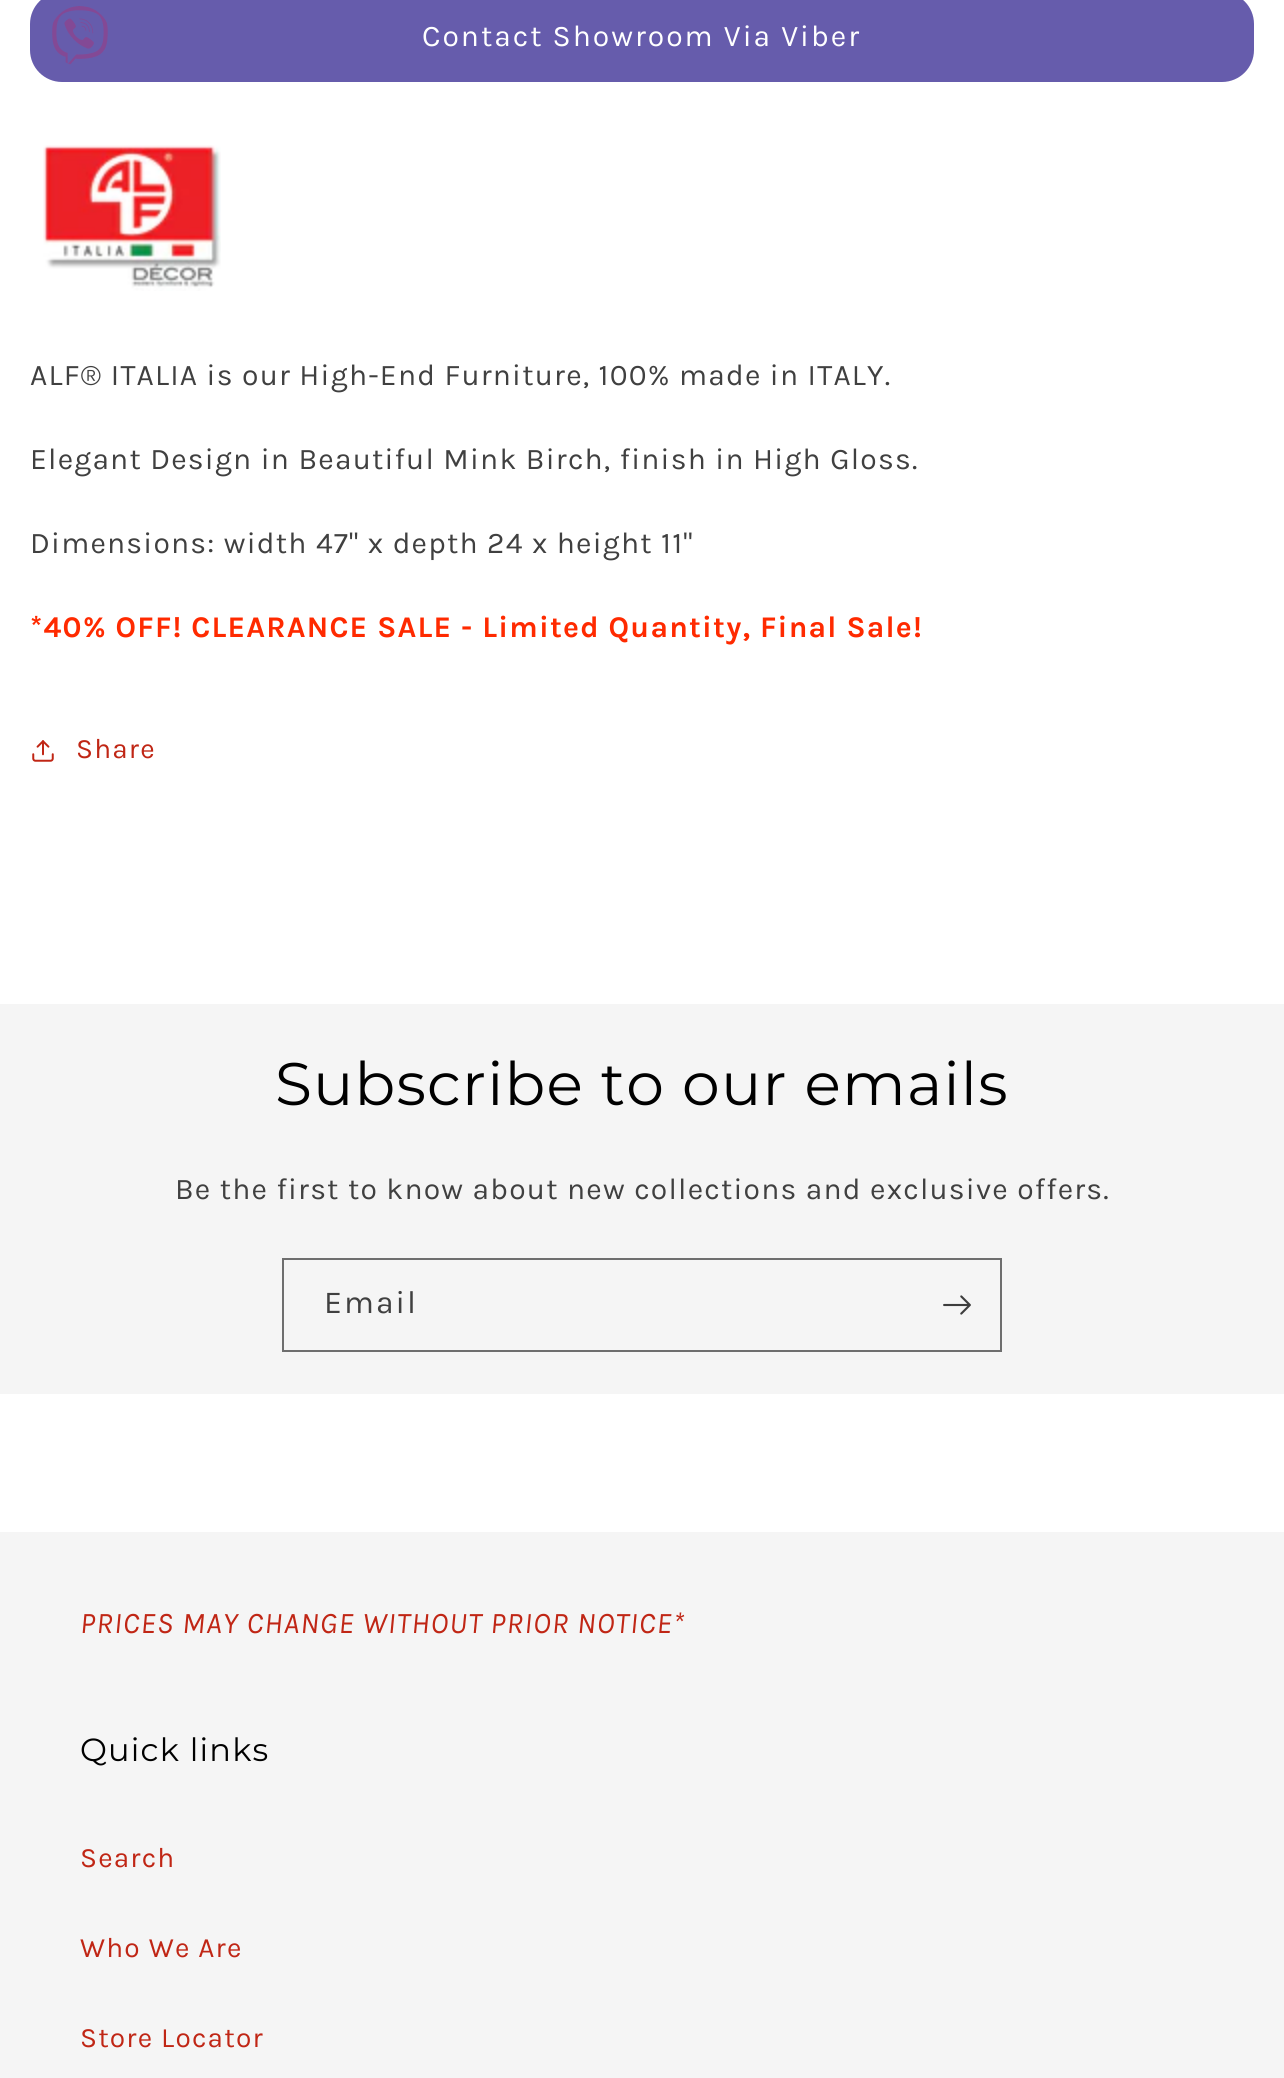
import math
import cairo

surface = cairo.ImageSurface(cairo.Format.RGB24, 1284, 2078)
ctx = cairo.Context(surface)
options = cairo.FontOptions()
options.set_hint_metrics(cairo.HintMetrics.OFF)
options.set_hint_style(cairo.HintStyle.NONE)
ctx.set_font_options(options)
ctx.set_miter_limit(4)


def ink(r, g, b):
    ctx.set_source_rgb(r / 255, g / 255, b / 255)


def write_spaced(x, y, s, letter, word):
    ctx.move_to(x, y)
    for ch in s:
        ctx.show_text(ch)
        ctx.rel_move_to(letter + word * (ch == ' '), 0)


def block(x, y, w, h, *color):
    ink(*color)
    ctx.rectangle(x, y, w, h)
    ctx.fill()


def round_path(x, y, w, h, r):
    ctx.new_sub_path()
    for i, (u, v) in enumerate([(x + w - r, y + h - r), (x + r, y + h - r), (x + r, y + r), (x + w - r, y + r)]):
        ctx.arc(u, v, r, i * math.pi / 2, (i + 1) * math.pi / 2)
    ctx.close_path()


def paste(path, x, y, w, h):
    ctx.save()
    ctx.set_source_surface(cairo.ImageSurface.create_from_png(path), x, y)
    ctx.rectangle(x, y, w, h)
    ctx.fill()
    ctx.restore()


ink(255, 255, 255)
ctx.paint()
ink(102, 92, 172)
round_path(30, -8, 1224, 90, 32)
ctx.fill()
paste("pic1.png", 52, 6, 56, 59)
ctx.select_font_face("Karla")
ctx.set_font_size(30)
ink(255, 255, 255)
write_spaced(422, 46, "Contact Showroom Via Viber", 2, 0)
paste("pic2.png", 43, 145, 178, 146)
ink(64, 64, 64)
write_spaced(30, 385, "ALF® ITALIA is our High-End Furniture, 100% made in ITALY.", 1.2, 0)
write_spaced(30, 469, "Elegant Design in Beautiful Mink Birch, finish in High Gloss.", 1.2, 0)
write_spaced(30, 553, "Dimensions: width 47\" x depth 24 x height 11\"", 1.2, 0)
ctx.select_font_face("Karla", cairo.FontSlant.NORMAL, cairo.FontWeight.BOLD)
ink(255, 42, 0)
write_spaced(30, 637, "*40% OFF! CLEARANCE SALE - Limited Quantity, Final Sale!", 1.2, 0)
paste("pic3.png", 32, 740, 22, 22)
ctx.select_font_face("Karla")
ctx.set_font_size(28)
ink(192, 38, 21)
write_spaced(76, 758, "Share", 1.2, 0)
block(0, 1004, 1284, 390, 245, 245, 245)
ctx.select_font_face("Montserrat")
ctx.set_font_size(60)
ink(0, 0, 0)
write_spaced(275, 1105, "Subscribe to our emails", 1.2, 0)
ctx.select_font_face("Karla")
ctx.set_font_size(30)
ink(64, 64, 64)
write_spaced(175, 1199, "Be the first to know about new collections and exclusive offers.", 1.2, 0)
ctx.rectangle(283, 1259, 718, 92)
ink(110, 110, 110)
ctx.stroke()
ctx.set_font_size(32)
ink(64, 64, 64)
write_spaced(324, 1313, "Email", 2, 0)
paste("pic4.png", 943, 1295, 28, 20)
block(0, 1532, 1284, 546, 245, 245, 245)
ctx.select_font_face("Karla", cairo.FontSlant.ITALIC)
ctx.set_font_size(30)
ink(192, 38, 21)
write_spaced(80, 1633, "PRICES MAY CHANGE WITHOUT PRIOR NOTICE*", 1.2, 0)
ctx.select_font_face("Montserrat")
ctx.set_font_size(32)
ink(0, 0, 0)
write_spaced(80, 1761, "Quick links", 1.2, 0)
ctx.select_font_face("Karla")
ctx.set_font_size(28)
ink(192, 38, 21)
write_spaced(80, 1867, "Search", 1.2, 0)
write_spaced(80, 1957, "Who We Are", 1.2, 0)
write_spaced(80, 2047, "Store Locator", 1.2, 0)
surface.write_to_png("screenshot.png")
